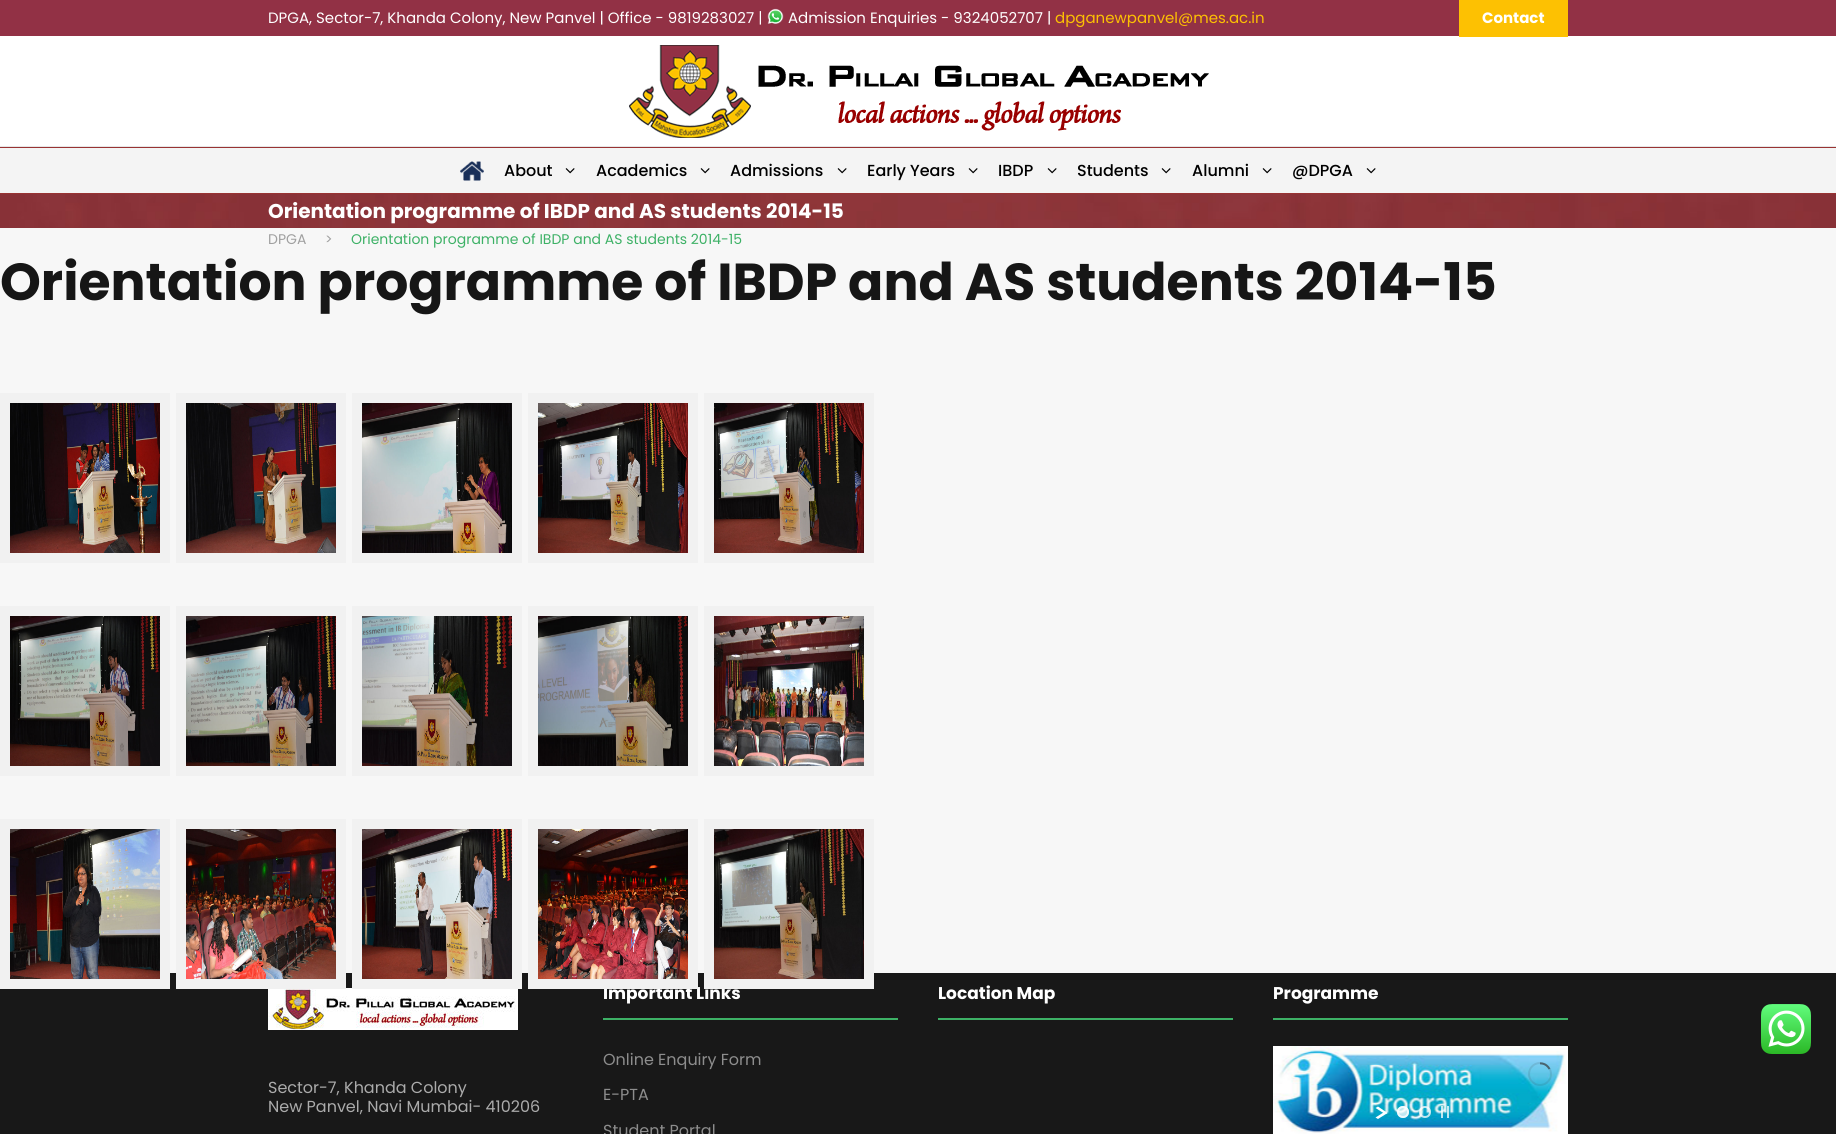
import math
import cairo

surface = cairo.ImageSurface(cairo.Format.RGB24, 1836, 1134)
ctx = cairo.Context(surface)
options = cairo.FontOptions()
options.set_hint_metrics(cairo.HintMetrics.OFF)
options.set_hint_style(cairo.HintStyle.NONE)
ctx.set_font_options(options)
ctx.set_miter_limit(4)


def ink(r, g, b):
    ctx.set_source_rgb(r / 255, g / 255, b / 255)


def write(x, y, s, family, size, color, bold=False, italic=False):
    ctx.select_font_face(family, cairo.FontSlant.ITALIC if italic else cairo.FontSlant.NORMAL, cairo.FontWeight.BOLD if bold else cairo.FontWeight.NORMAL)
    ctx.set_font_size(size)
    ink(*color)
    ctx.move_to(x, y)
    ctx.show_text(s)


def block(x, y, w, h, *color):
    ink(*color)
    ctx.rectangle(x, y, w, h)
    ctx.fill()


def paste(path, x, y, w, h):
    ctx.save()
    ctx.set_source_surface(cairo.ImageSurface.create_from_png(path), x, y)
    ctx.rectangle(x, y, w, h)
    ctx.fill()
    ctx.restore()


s1 = dict(family="Poppins", size=15, color=(255, 255, 255))
s2 = dict(family="Poppins", size=15, color=(253, 193, 2))
s3 = dict(family="Poppins", size=15, color=(255, 255, 255), bold=True)
s4 = dict(family="Poppins Medium", size=16, color=(0, 0, 0))
s5 = dict(family="Poppins", size=20, color=(255, 255, 255), bold=True)
s6 = dict(family="Poppins", size=14, color=(160, 160, 160))
s7 = dict(family="Poppins", size=14, color=(61, 177, 102))
s8 = dict(family="Poppins", size=52, color=(22, 22, 22), bold=True)
s9 = dict(family="Poppins", size=17, color=(255, 255, 255), bold=True)
s10 = dict(family="Poppins", size=16, color=(141, 141, 141))
s11 = dict(family="Poppins", size=16, color=(171, 171, 171))

ink(247, 247, 247)
ctx.paint()
block(0, 0, 1836, 36, 146, 49, 69)
write(268, 23, "DPGA, Sector-7, Khanda Colony, New Panvel | Office - 9819283027 |", **s1)
paste("pic1.png", 767, 8, 17, 16)
write(788, 23, "Admission Enquiries - 9324052707 |", **s1)
write(1055, 23, "dpganewpanvel@mes.ac.in", **s2)
block(0, 36, 1836, 110, 255, 255, 255)
block(1459, 0, 109, 37, 253, 193, 2)
write(1482, 23, "Contact", **s3)
paste("pic2.png", 629, 45, 580, 93)
block(0, 146, 1836, 1, 230, 230, 230)
block(0, 148, 1836, 45, 244, 244, 244)
block(0, 147, 1836, 1, 153, 51, 51)
block(0, 193, 1836, 1, 153, 51, 51)
paste("pic3.png", 460, 161, 24, 20)
write(504, 176, "About", **s4)
paste("pic4.png", 565, 168, 10, 6)
write(596, 176, "Academics", **s4)
paste("pic4.png", 700, 168, 10, 6)
write(730, 176, "Admissions", **s4)
paste("pic4.png", 837, 168, 10, 6)
write(867, 176, "Early Years", **s4)
paste("pic4.png", 968, 168, 10, 6)
write(998, 176, "IBDP", **s4)
paste("pic4.png", 1047, 168, 10, 6)
write(1077, 176, "Students", **s4)
paste("pic4.png", 1161, 168, 10, 6)
write(1192, 176, "Alumni", **s4)
paste("pic4.png", 1262, 168, 10, 6)
write(1292, 176, "@DPGA", **s4)
paste("pic4.png", 1366, 168, 10, 6)
paste("pic5.png", 0, 194, 1836, 34)
write(268, 218, "Orientation programme of IBDP and AS students 2014-15", **s5)
write(268, 244, "DPGA", **s6)
write(325, 244, ">", **s6)
write(351, 244, "Orientation programme of IBDP and AS students 2014-15", **s7)
write(0, 300, "Orientation programme of IBDP and AS students 2014-15", **s8)
ctx.rectangle(5, 398, 160, 160)
ink(241, 241, 241)
ctx.set_line_width(10)
ctx.stroke()
paste("pic6.png", 10, 403, 150, 150)
ctx.rectangle(181, 398, 160, 160)
ctx.stroke()
paste("pic7.png", 186, 403, 150, 150)
ctx.rectangle(357, 398, 160, 160)
ctx.stroke()
paste("pic8.png", 362, 403, 150, 150)
ctx.rectangle(533, 398, 160, 160)
ctx.stroke()
paste("pic9.png", 538, 403, 150, 150)
ctx.rectangle(709, 398, 160, 160)
ctx.stroke()
paste("pic10.png", 714, 403, 150, 150)
ctx.rectangle(5, 611, 160, 160)
ctx.stroke()
paste("pic11.png", 10, 616, 150, 150)
ctx.rectangle(181, 611, 160, 160)
ctx.stroke()
paste("pic12.png", 186, 616, 150, 150)
ctx.rectangle(357, 611, 160, 160)
ctx.stroke()
paste("pic13.png", 362, 616, 150, 150)
ctx.rectangle(533, 611, 160, 160)
ctx.stroke()
paste("pic14.png", 538, 616, 150, 150)
ctx.rectangle(709, 611, 160, 160)
ctx.stroke()
paste("pic15.png", 714, 616, 150, 150)
block(0, 973, 1836, 161, 24, 24, 24)
ctx.rectangle(5, 824, 160, 160)
ink(241, 241, 241)
ctx.stroke()
paste("pic16.png", 10, 829, 150, 150)
paste("pic22.png", 268, 988, 250, 42)
ctx.rectangle(181, 824, 160, 160)
ctx.stroke()
paste("pic17.png", 186, 829, 150, 150)
ctx.rectangle(357, 824, 160, 160)
ctx.stroke()
paste("pic18.png", 362, 829, 150, 150)
write(603, 999, "Important Links", **s9)
ctx.rectangle(533, 824, 160, 160)
ink(241, 241, 241)
ctx.stroke()
paste("pic19.png", 538, 829, 150, 150)
ctx.rectangle(709, 824, 160, 160)
ctx.stroke()
paste("pic20.png", 714, 829, 150, 150)
block(603, 1018, 295, 2, 61, 177, 102)
write(603, 1065, "Online Enquiry Form", **s10)
write(603, 1100, "E-PTA", **s10)
write(603, 1136, "Student Portal", **s10)
block(938, 1018, 295, 2, 61, 177, 102)
write(938, 999, "Location Map", **s9)
block(1273, 1018, 295, 2, 61, 177, 102)
write(1273, 999, "Programme", **s9)
paste("pic21.png", 1273, 1046, 295, 88)
ctx.arc(1540, 1074, 11, 0, 2 * math.pi)
ctx.set_source_rgba(0.212, 0.212, 0.212, 0.13)
ctx.set_line_width(2)
ctx.stroke()
ctx.save()
ctx.rectangle(1540, 1062, 12, 24)
ctx.clip()
ctx.new_path()
ctx.move_to(1544.5, 1058)
ctx.line_to(1550.5, 1068.5)
ctx.line_to(1529.5, 1080)
ctx.line_to(1523.5, 1070)
ctx.close_path()
ctx.clip()
ctx.new_path()
ctx.move_to(1549.5, 1069)
ctx.curve_to(1556.5, 1081.5, 1537.5, 1092.5, 1530.5, 1079.5)
ctx.curve_to(1523.5, 1067, 1542.5, 1056.5, 1549.5, 1069)
ctx.close_path()
ctx.set_source_rgba(0.212, 0.212, 0.212, 0.65)
ctx.stroke()
ctx.restore()
ink(255, 255, 255)
ctx.new_path()
ctx.move_to(1378, 1106.5)
ctx.line_to(1387.5, 1113)
ctx.line_to(1385, 1114)
ctx.line_to(1375.5, 1108)
ctx.close_path()
ctx.fill()
ctx.new_path()
ctx.move_to(1385, 1111.5)
ctx.line_to(1387.5, 1113)
ctx.line_to(1378, 1119)
ctx.line_to(1375.5, 1117.5)
ctx.close_path()
ctx.fill()
ctx.set_source_rgba(1, 1, 1, 0.75)
ctx.arc(1403, 1112, 6, 0, 2 * math.pi)
ctx.fill()
ctx.arc(1403, 1112, 5, 0, 2 * math.pi)
ctx.stroke()
ctx.arc(1425, 1112, 5, 0, 2 * math.pi)
ctx.stroke()
ctx.rectangle(1447, 1106, 2, 12)
ctx.fill()
ctx.rectangle(1441, 1106, 2, 12)
ctx.fill()
write(268, 1093, "Sector-7, Khanda Colony", **s11)
write(268, 1112, "New Panvel, Navi Mumbai- 410206", **s11)
paste("pic23.png", 1761, 1004, 50, 50)
surface.write_to_png("screenshot.png")
